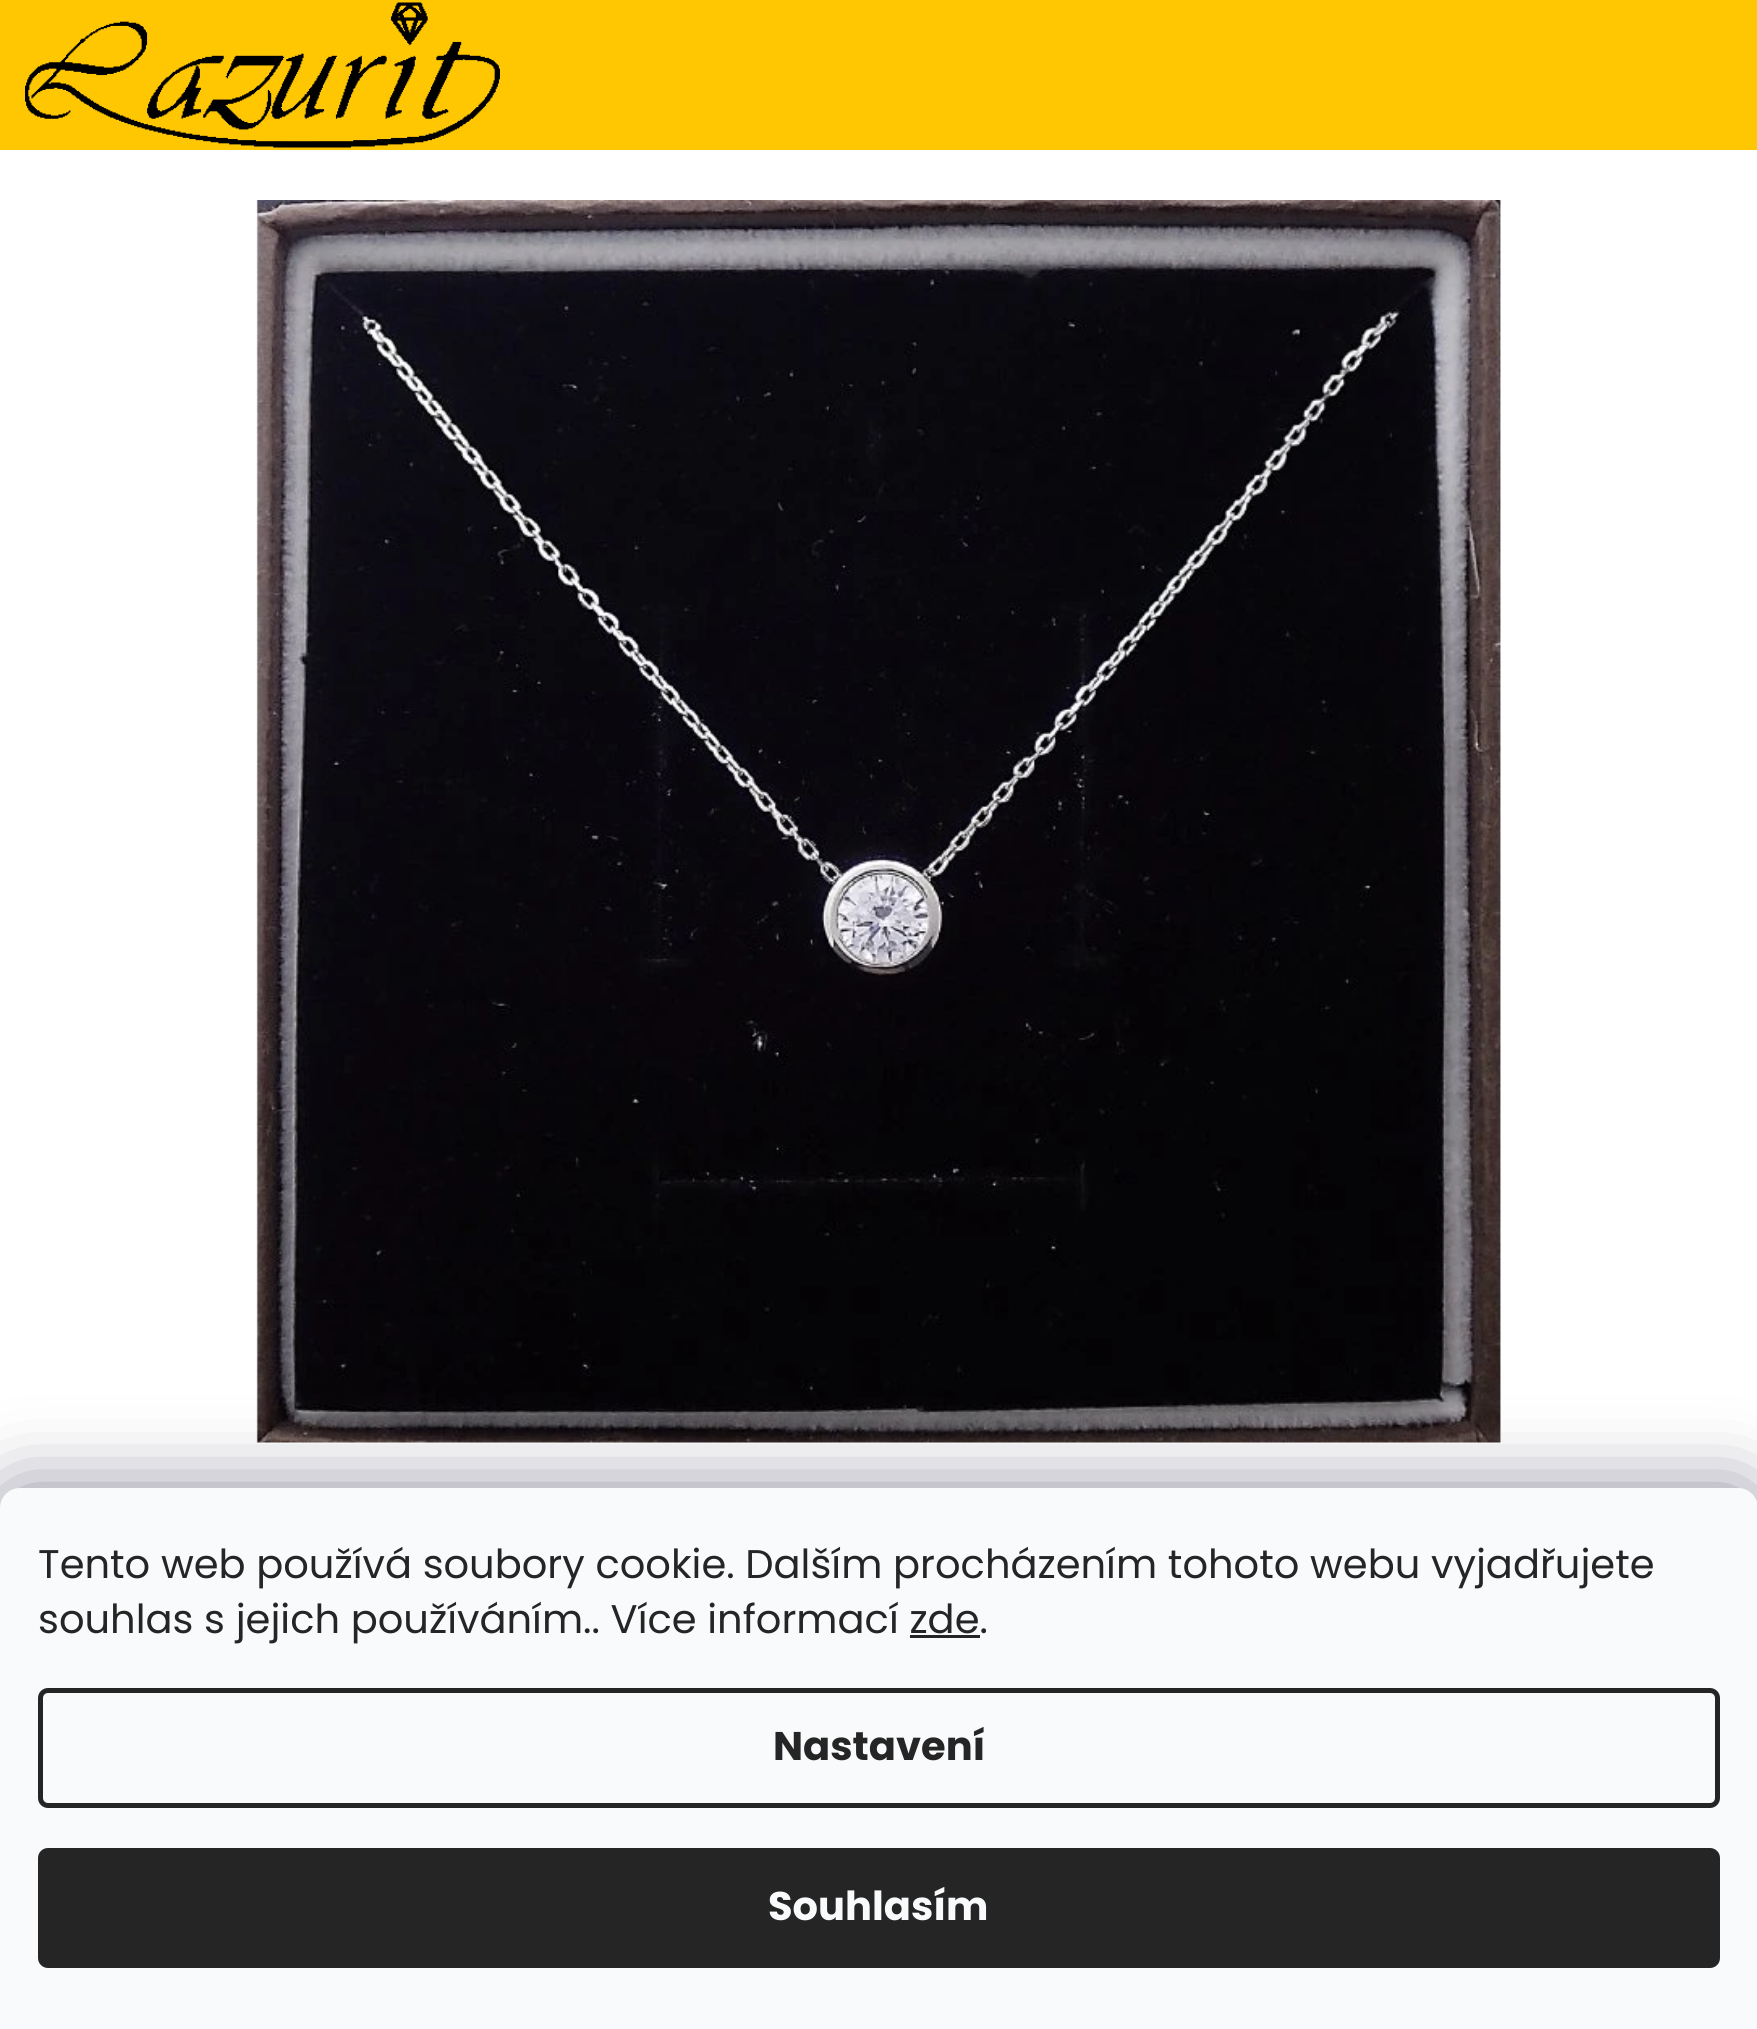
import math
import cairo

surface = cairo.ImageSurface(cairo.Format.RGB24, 1757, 2029)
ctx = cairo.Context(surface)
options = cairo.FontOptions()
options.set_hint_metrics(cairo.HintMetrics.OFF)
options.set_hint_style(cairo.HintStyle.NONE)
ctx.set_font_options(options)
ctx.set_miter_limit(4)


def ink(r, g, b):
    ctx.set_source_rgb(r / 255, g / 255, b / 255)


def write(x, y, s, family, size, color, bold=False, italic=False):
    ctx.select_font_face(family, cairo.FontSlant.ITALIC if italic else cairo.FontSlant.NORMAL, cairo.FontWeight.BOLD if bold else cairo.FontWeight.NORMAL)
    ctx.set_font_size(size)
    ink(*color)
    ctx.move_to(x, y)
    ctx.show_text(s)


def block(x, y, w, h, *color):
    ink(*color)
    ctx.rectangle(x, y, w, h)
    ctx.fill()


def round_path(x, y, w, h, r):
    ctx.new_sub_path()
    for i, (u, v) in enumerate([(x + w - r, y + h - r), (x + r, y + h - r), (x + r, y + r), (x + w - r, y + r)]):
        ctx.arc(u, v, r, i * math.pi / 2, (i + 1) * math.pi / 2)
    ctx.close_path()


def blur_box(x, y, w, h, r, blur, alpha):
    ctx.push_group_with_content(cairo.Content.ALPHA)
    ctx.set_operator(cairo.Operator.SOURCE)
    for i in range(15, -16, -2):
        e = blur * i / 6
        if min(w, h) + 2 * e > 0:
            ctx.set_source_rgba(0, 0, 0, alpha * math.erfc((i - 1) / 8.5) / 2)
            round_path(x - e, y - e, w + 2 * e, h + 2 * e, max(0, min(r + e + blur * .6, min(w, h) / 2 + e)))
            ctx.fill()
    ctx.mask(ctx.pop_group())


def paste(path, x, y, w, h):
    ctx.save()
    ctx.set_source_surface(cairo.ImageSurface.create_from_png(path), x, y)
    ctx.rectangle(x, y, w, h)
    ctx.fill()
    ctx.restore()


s1 = dict(family="Poppins", size=40, color=(37, 37, 37))
s2 = dict(family="Poppins", size=40, color=(37, 37, 37), bold=True)
s3 = dict(family="Poppins", size=40, color=(248, 250, 251), bold=True)

ink(255, 199, 2)
ctx.paint()
paste("pic1.png", 25, 2, 475, 146)
block(0, 150, 1757, 1358, 255, 255, 255)
paste("pic2.png", 256, 200, 1245, 1243)
ink(27, 25, 57)
blur_box(0, 1488, 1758, 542, 20, 37.5, 0.5)
ink(248, 250, 251)
ctx.new_path()
ctx.move_to(20, 1488)
ctx.line_to(1738, 1488)
ctx.curve_to(1749, 1488, 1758, 1497, 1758, 1508)
ctx.line_to(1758, 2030)
ctx.line_to(0, 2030)
ctx.line_to(0, 1508)
ctx.curve_to(0, 1497, 9, 1488, 20, 1488)
ctx.close_path()
ctx.fill()
write(38, 1578, "Tento web používá soubory cookie. Dalším procházením tohoto webu vyjadřujete", **s1)
write(38, 1633, "souhlas s jejich používáním.. Více informací zde.", **s1)
block(910, 1635, 70, 3, 37, 37, 37)
round_path(40.5, 1690.5, 1677, 115, 7.5)
ctx.set_line_width(5)
ctx.stroke()
write(773, 1760, "Nastavení", **s2)
round_path(38, 1848, 1682, 120, 10)
ctx.fill()
write(768, 1920, "Souhlasím", **s3)
surface.write_to_png("screenshot.png")
